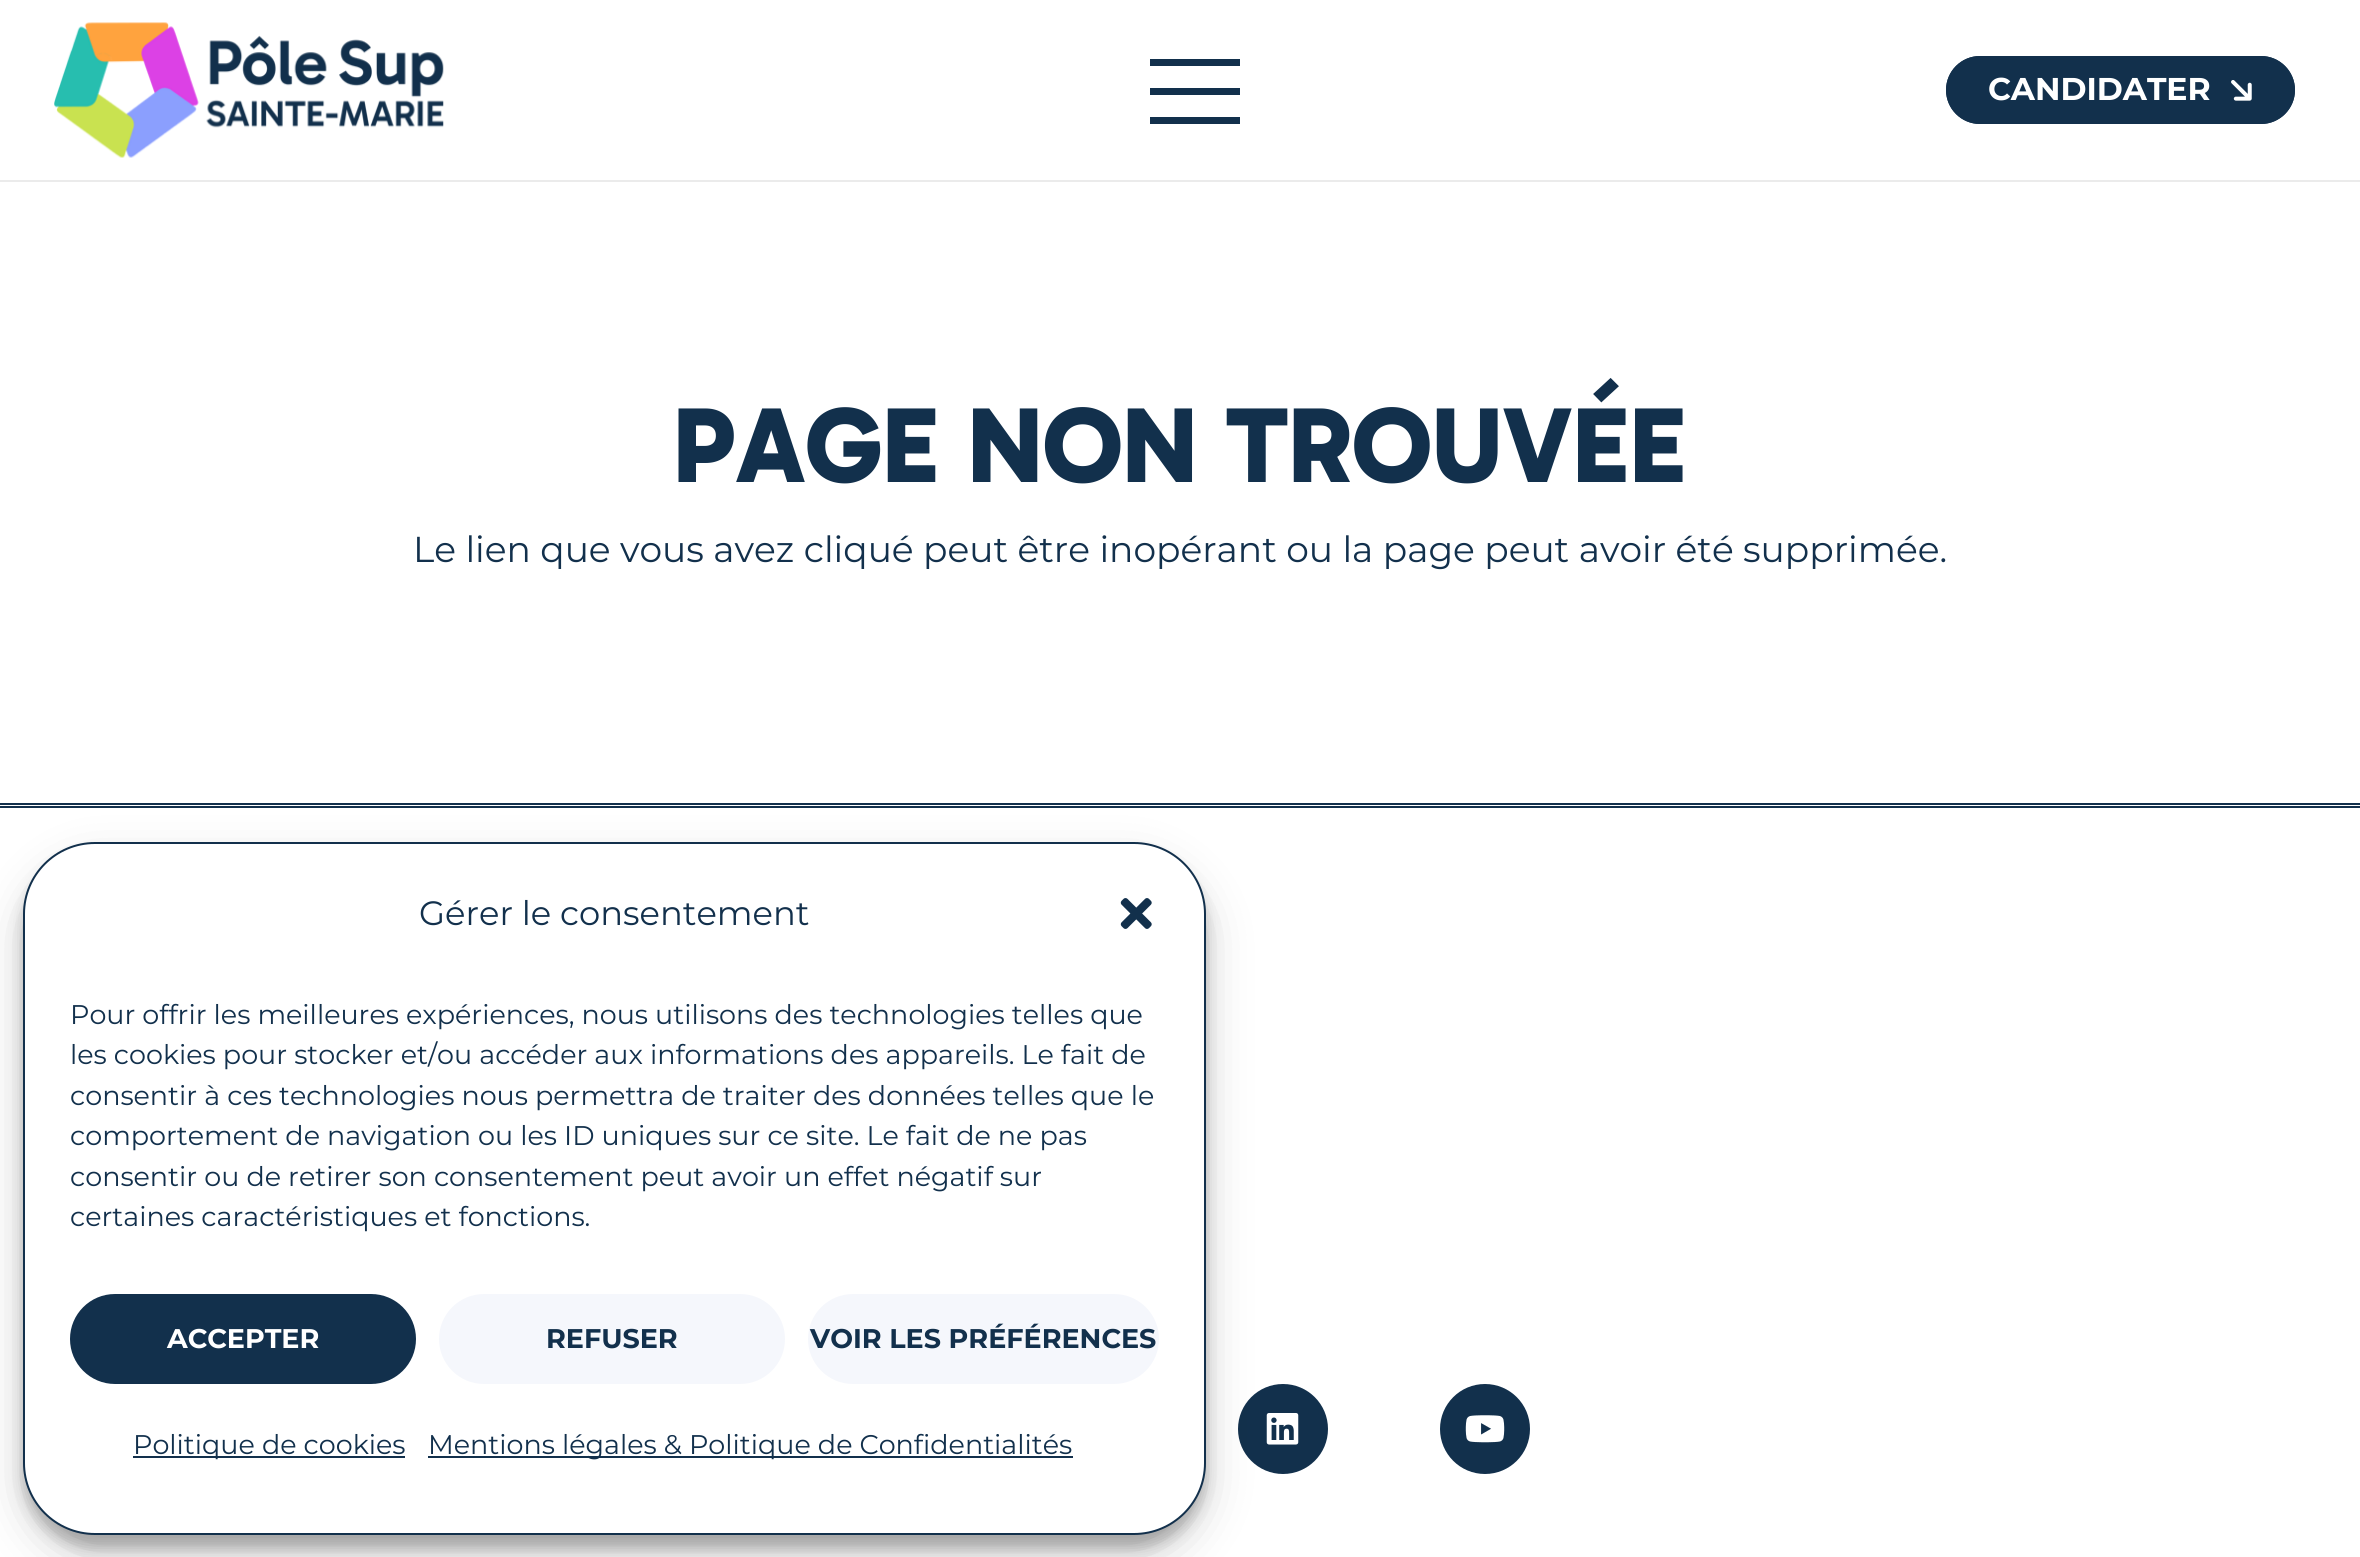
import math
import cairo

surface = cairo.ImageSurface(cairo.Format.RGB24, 2360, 1557)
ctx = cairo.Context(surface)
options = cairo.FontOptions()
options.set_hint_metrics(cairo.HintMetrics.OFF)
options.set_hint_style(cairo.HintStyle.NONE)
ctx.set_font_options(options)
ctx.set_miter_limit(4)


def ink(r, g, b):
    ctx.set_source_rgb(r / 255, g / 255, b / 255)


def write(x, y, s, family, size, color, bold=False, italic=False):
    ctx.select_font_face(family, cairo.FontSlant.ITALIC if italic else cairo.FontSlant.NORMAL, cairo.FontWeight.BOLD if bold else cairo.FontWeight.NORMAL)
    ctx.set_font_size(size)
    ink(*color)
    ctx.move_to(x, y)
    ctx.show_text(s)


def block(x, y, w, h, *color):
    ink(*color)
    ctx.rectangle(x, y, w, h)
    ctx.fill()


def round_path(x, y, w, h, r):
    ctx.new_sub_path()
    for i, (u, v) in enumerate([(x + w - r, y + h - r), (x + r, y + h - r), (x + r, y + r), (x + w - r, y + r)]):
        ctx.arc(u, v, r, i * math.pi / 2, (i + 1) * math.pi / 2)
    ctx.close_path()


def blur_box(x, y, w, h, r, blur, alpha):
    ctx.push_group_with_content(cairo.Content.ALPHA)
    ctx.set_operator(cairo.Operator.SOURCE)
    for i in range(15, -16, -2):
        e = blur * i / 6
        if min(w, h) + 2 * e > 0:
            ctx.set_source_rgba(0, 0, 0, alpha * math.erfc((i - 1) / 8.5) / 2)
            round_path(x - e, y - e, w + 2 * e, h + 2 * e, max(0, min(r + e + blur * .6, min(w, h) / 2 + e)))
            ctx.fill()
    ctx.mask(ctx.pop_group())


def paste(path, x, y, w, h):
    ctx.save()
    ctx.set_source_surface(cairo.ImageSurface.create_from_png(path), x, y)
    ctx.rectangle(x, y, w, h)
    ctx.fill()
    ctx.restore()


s1 = dict(family="Montserrat", size=31.5, color=(255, 255, 255), bold=True)
s2 = dict(family="Gabarito ExtraBold", size=108, color=(18, 48, 76))
s3 = dict(family="Montserrat", size=36, color=(18, 48, 76))
s4 = dict(family="Montserrat", size=33.75, color=(18, 48, 76))
s5 = dict(family="Montserrat", size=27, color=(18, 48, 76))
s6 = dict(family="Montserrat", size=27, color=(255, 255, 255), bold=True)
s7 = dict(family="Montserrat", size=27, color=(18, 48, 76), bold=True)

ink(255, 255, 255)
ctx.paint()
block(0, 180, 2360, 2, 235, 235, 235)
paste("pic1.png", 54, 22, 390, 136)
block(1150, 88, 90, 7, 18, 48, 76)
block(1150, 59, 90, 7, 18, 48, 76)
block(1150, 117, 90, 7, 18, 48, 76)
round_path(1946, 56, 349, 68, 34)
ctx.fill()
round_path(1947, 57, 347, 66, 33)
ctx.stroke()
write(1988, 100, "CANDIDATER", **s1)
paste("pic2.png", 2231, 80, 21, 21)
block(0, 803, 2360, 2, 18, 48, 76)
write(673, 482, "PAGE NON TROUVÉE", **s2)
write(413, 562, "Le lien que vous avez cliqué peut être inopérant ou la page peut avoir été supprimée.", **s3)
block(0, 806, 2360, 2, 18, 48, 76)
ctx.new_path()
ctx.arc(1283, 1429, 45, 0, 2 * math.pi)
ctx.fill()
paste("pic3.png", 1266, 1413, 33, 32)
ctx.arc(1485, 1429, 45, 0, 2 * math.pi)
ctx.fill()
paste("pic4.png", 1465, 1415, 40, 28)
ink(0, 0, 0)
blur_box(23, 855, 1183, 693, 72, 7, 0.23)
blur_box(23, 864, 1183, 693, 72, 22.5, 0.19)
ink(255, 255, 255)
round_path(24, 843, 1181, 691, 71)
ctx.fill_preserve()
ink(18, 48, 76)
ctx.stroke()
write(419, 925, "Gérer le consentement", **s4)
paste("pic5.png", 1120, 898, 32, 31)
write(70, 1024, "Pour offrir les meilleures expériences, nous utilisons des technologies telles que", **s5)
write(70, 1064, "les cookies pour stocker et/ou accéder aux informations des appareils. Le fait de", **s5)
write(70, 1105, "consentir à ces technologies nous permettra de traiter des données telles que le", **s5)
write(70, 1145, "comportement de navigation ou les ID uniques sur ce site. Le fait de ne pas", **s5)
write(70, 1186, "consentir ou de retirer son consentement peut avoir un effet négatif sur", **s5)
write(70, 1226, "certaines caractéristiques et fonctions.", **s5)
round_path(71, 1295, 344, 88, 44)
ctx.fill_preserve()
ctx.stroke()
write(167, 1348, "ACCEPTER", **s6)
ink(245, 247, 252)
round_path(440, 1295, 344, 88, 44)
ctx.fill_preserve()
ctx.stroke()
write(546, 1348, "REFUSER", **s7)
ink(245, 247, 252)
round_path(809, 1295, 349, 88, 44)
ctx.fill_preserve()
ctx.stroke()
write(810, 1348, "VOIR LES PRÉFÉRENCES", **s7)
block(133, 1456, 272, 2, 18, 48, 76)
write(133, 1454, "Politique de cookies", **s5)
block(428, 1456, 645, 2, 18, 48, 76)
write(428, 1454, "Mentions légales & Politique de Confidentialités", **s5)
surface.write_to_png("screenshot.png")
